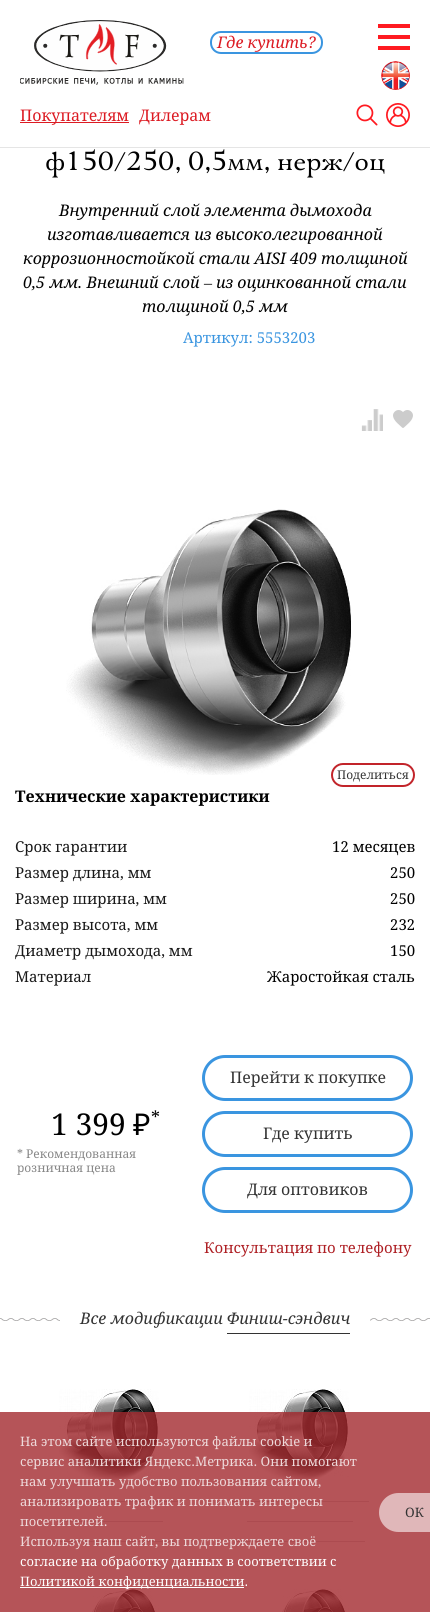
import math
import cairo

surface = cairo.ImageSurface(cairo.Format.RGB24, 430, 1612)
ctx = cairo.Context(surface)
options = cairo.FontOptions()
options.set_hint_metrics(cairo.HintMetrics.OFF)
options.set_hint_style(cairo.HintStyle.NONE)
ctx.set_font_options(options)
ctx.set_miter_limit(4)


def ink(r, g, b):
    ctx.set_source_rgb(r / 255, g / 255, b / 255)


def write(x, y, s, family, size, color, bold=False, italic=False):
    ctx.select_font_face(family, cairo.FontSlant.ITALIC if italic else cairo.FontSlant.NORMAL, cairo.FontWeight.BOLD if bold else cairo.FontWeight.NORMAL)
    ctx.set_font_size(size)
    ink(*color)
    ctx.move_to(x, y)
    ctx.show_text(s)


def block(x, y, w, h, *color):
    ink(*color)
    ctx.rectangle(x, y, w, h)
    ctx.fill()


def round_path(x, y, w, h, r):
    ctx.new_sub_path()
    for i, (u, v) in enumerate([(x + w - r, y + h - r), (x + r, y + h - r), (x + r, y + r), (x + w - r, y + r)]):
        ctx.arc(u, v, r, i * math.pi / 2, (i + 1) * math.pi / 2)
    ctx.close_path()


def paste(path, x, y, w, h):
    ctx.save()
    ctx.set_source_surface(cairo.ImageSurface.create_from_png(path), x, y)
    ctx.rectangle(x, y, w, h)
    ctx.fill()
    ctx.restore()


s1 = dict(family="Droid Serif", size=16, color=(220, 27, 35), italic=True)
s2 = dict(family="Droid Serif", size=16, color=(220, 27, 35))
s3 = dict(family="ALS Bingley", size=27, color=(0, 0, 0))
s4 = dict(family="Droid Serif", size=16, color=(0, 0, 0), italic=True)
s5 = dict(family="Liberation Serif", size=16, color=(0, 0, 0), italic=True)
s6 = dict(family="Droid Serif", size=15, color=(58, 149, 224))
s7 = dict(family="Droid Serif", size=12, color=(51, 51, 51))
s8 = dict(family="Droid Serif", size=16, color=(0, 0, 0), bold=True)
s9 = dict(family="Droid Serif", size=15, color=(25, 25, 25))
s10 = dict(family="Droid Serif", size=15, color=(0, 0, 0))
s11 = dict(family="Droid Serif", size=30, color=(0, 0, 0))
s12 = dict(family="Noto Sans", size=30, color=(0, 0, 0))
s13 = dict(family="Droid Serif", size=18, color=(0, 0, 0))
s14 = dict(family="Droid Serif", size=12, color=(134, 134, 134))
s15 = dict(family="Droid Serif", size=16, color=(51, 51, 51))
s16 = dict(family="Droid Serif", size=15, color=(174, 31, 36))
s17 = dict(family="Droid Serif", size=16, color=(51, 51, 51), italic=True)
s18 = dict(family="Droid Serif", size=13, color=(238, 218, 219))
s19 = dict(family="Droid Serif", size=13, color=(255, 255, 255))
s20 = dict(family="Droid Serif", size=13, color=(51, 51, 51))

ink(255, 255, 255)
ctx.paint()
block(0, 147, 430, 1, 229, 229, 229)
round_path(211, 32, 111, 21, 10)
ink(58, 149, 224)
ctx.stroke()
write(217, 48, "Где купить?", **s1)
block(378, 24, 32, 4, 255, 26, 33)
block(378, 35, 32, 4, 255, 26, 33)
block(378, 46, 32, 4, 255, 26, 33)
paste("pic1.png", 381, 61, 29, 29)
paste("pic2.png", 356, 104, 22, 22)
paste("pic3.png", 386, 103, 24, 24)
paste("pic4.png", 20, 20, 164, 65)
block(20, 122, 109, 1, 220, 27, 35)
write(20, 121, "Покупателям", **s2)
write(139, 121, "Дилерам", **s2)
write(45, 170, "ф150/250, 0,5мм, нерж/оц", **s3)
write(59, 216, "Внутренний слой элемента дымохода", **s4)
write(47, 240, "изготавливается из высоколегированной", **s4)
write(23, 264, "коррозионностойкой стали AISI 409 толщиной", **s4)
write(23, 288, "0,5 мм. Внешний слой", **s4)
write(204, 288, "–", **s5)
write(216, 288, "из оцинкованной стали", **s4)
write(142, 312, "толщиной 0,5 мм", **s4)
write(183, 343, "Артикул: 5553203", **s6)
paste("pic5.png", 361, 409, 22, 22)
paste("pic6.png", 393, 410, 20, 18)
paste("pic7.png", 66, 509, 285, 266)
round_path(332, 764, 82, 22, 11)
ink(194, 36, 42)
ctx.stroke()
write(337, 779, "Поделиться", **s7)
write(15, 802, "Технические характеристики", **s8)
write(15, 852, "Срок гарантии", **s9)
write(332, 852, "12 месяцев", **s10)
write(15, 878, "Размер длина, мм", **s9)
write(390, 878, "250", **s10)
write(15, 904, "Размер ширина, мм", **s9)
write(390, 904, "250", **s10)
write(15, 930, "Размер высота, мм", **s9)
write(390, 930, "232", **s10)
write(15, 956, "Диаметр дымохода, мм", **s9)
write(390, 956, "150", **s10)
write(15, 982, "Материал", **s9)
write(267, 982, "Жаростойкая сталь", **s10)
write(51, 1135, "1 399", **s11)
write(133, 1135, "₽", **s12)
write(151, 1124, "*", **s13)
write(17, 1158, "* Рекомендованная", **s14)
write(17, 1172, "розничная цена", **s14)
round_path(203.5, 1056.5, 208, 43, 21.5)
ink(58, 149, 224)
ctx.set_line_width(3)
ctx.stroke()
write(230, 1083, "Перейти к покупке", **s15)
round_path(203.5, 1112.5, 208, 43, 21.5)
ink(58, 149, 224)
ctx.stroke()
write(263, 1139, "Где купить", **s15)
round_path(203.5, 1168.5, 208, 43, 21.5)
ink(58, 149, 224)
ctx.stroke()
write(247, 1195, "Для оптовиков", **s15)
write(204, 1253, "Консультация по телефону", **s16)
paste("pic8.png", 0, 1318, 430, 3)
block(60, 1318, 310, 3, 255, 255, 255)
write(80, 1324, "Все модификации Финиш-сэндвич", **s17)
block(227, 1333, 123, 1, 51, 51, 51)
paste("pic9.png", 59, 1389, 100, 93)
block(41, 1501, 138, 1, 209, 209, 213)
block(57, 1521, 106, 1, 209, 209, 213)
block(45, 1541, 130, 1, 209, 209, 213)
paste("pic9.png", 249, 1389, 100, 93)
block(231, 1501, 138, 1, 209, 209, 213)
block(247, 1521, 106, 1, 209, 209, 213)
block(235, 1541, 130, 1, 209, 209, 213)
paste("pic10.png", 92, 1589, 67, 23)
paste("pic10.png", 282, 1589, 67, 23)
ctx.set_source_rgba(0.635, 0.165, 0.184, 0.8)
ctx.rectangle(0, 1412, 430, 200)
ctx.fill()
write(20, 1446, "На этом сайте используются файлы cookie и", **s18)
write(20, 1466, "сервис аналитики Яндекс.Метрика. Они помогают", **s18)
write(20, 1486, "нам улучшать удобство пользования сайтом,", **s18)
write(20, 1506, "анализировать трафик и понимать интересы", **s18)
write(20, 1526, "посетителей.", **s18)
write(20, 1546, "Используя наш сайт, вы подтверждаете своё", **s18)
write(20, 1566, "согласие на обработку данных в соответствии с", **s19)
block(20, 1587, 224, 1, 255, 255, 255)
write(20, 1586, "Политикой конфиденциальности.", **s19)
ink(224, 183, 185)
round_path(379, 1493, 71, 39, 19.5)
ctx.fill()
write(405, 1517, "ОК", **s20)
surface.write_to_png("screenshot.png")
